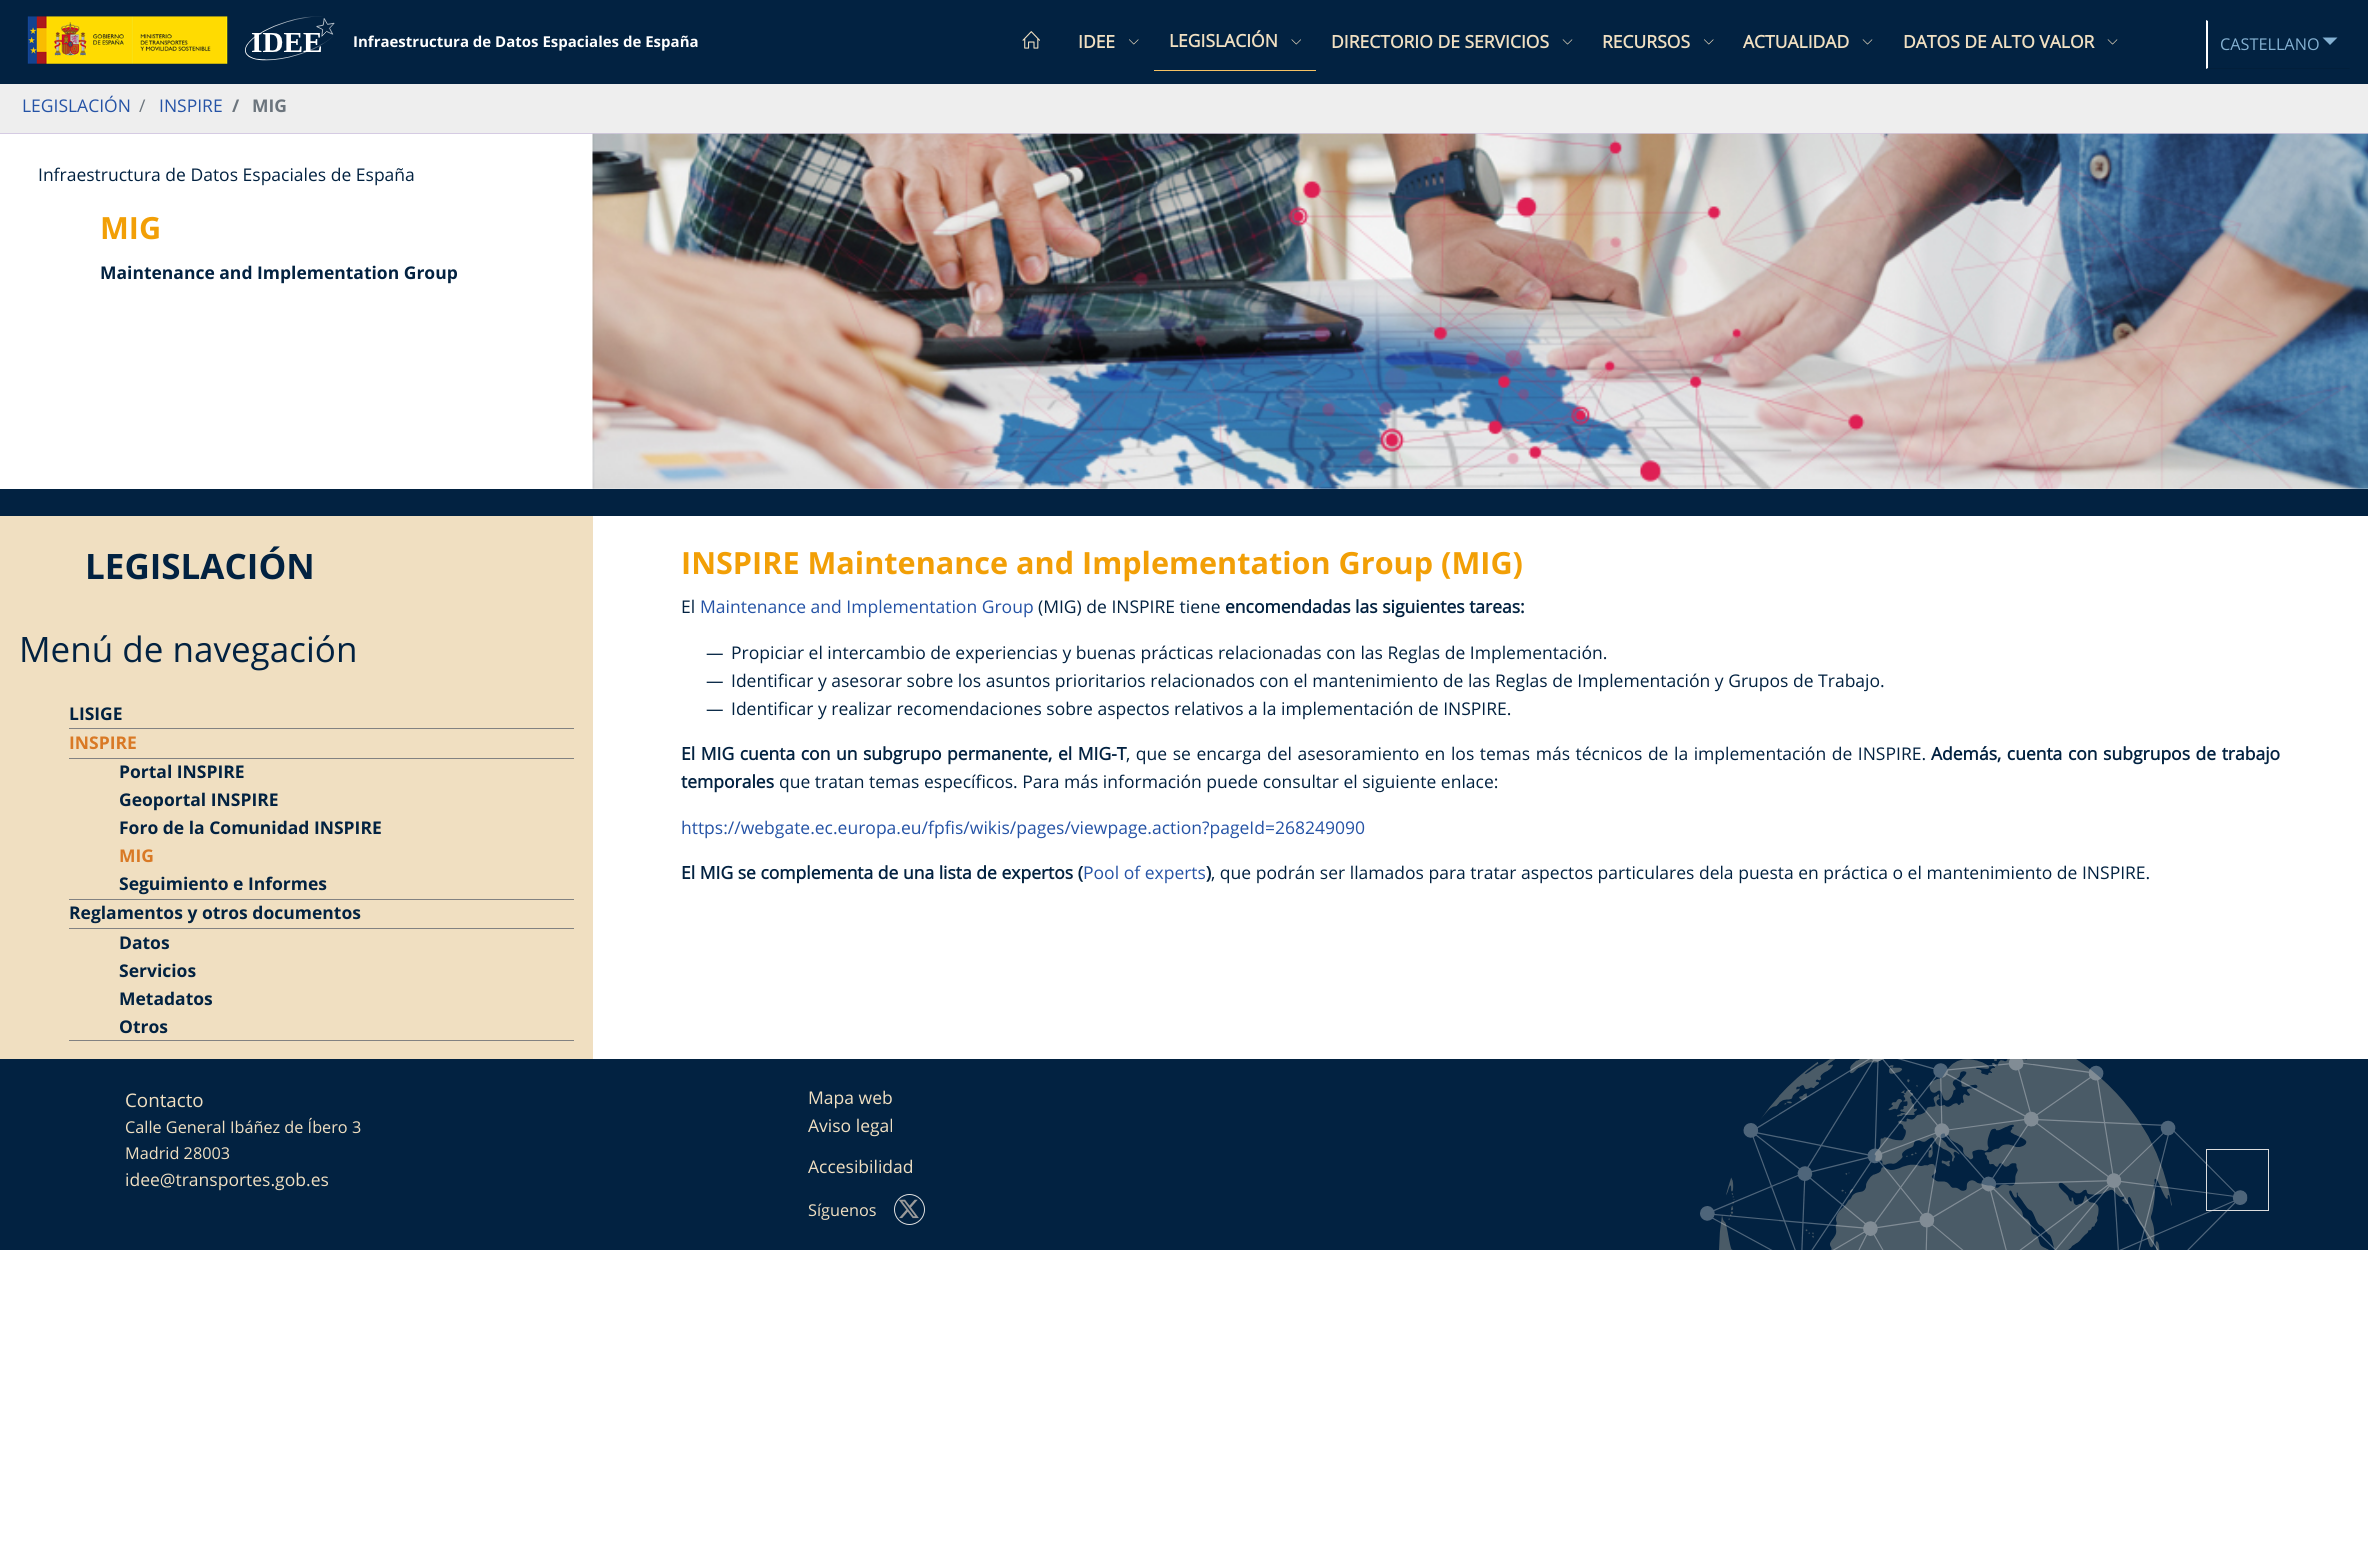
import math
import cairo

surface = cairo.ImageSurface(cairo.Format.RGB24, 2368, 1567)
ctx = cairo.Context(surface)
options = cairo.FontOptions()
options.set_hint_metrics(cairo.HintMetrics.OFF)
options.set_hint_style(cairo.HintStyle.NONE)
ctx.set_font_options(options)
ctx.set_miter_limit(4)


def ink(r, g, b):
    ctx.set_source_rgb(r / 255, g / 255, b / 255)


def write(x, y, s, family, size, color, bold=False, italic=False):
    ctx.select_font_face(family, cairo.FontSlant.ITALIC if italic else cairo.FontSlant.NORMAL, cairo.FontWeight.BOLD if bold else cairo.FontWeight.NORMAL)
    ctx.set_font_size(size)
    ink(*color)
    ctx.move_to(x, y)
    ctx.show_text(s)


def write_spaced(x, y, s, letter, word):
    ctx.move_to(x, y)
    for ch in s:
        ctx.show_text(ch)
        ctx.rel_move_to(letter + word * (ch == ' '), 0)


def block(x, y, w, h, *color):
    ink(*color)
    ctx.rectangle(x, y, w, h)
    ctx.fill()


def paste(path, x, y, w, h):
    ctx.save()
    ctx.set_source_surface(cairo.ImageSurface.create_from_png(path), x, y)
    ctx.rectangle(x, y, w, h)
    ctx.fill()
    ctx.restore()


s1 = dict(family="Open Sans", size=15, color=(255, 255, 255), bold=True)
s2 = dict(family="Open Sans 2", size=17.5, color=(240, 223, 193), bold=True)
s3 = dict(family="Open Sans", size=16.25, color=(132, 177, 210))
s4 = dict(family="Open Sans", size=17.5, color=(37, 83, 166))
s5 = dict(family="Open Sans", size=17.5, color=(108, 117, 125))
s6 = dict(family="Open Sans", size=17.5, color=(108, 117, 125), bold=True)
s7 = dict(family="Open Sans", size=17.5, color=(2, 34, 65))
s8 = dict(family="Open Sans", size=30.6, color=(242, 159, 6), bold=True)
s9 = dict(family="Open Sans", size=17.5, color=(2, 34, 65), bold=True)
s10 = dict(family="Open Sans", size=35, color=(2, 34, 65), bold=True)
s11 = dict(family="Open Sans", size=35, color=(2, 34, 65))
s12 = dict(family="Open Sans", size=17.5, color=(217, 121, 37), bold=True)
s13 = dict(family="Open Sans 2", size=17.5, color=(2, 34, 65), bold=True)
s14 = dict(family="Open Sans", size=18.75, color=(240, 223, 193))
s15 = dict(family="Open Sans", size=16.25, color=(240, 223, 193))
s16 = dict(family="Open Sans", size=17.5, color=(240, 223, 193))

ink(255, 255, 255)
ctx.paint()
block(0, 0, 2368, 84, 2, 34, 65)
paste("pic1.png", 27, 16, 201, 48)
paste("pic2.png", 245, 16, 90, 45)
write(353, 47, "Infraestructura de Datos Espaciales de España", **s1)
paste("pic3.png", 1022, 31, 18, 18)
write(1078, 48, "IDEE", **s2)
paste("pic4.png", 1129, 39, 10, 6)
block(1154, 70, 162, 1, 245, 194, 100)
write(1169, 47, "LEGISLACIÓN", **s2)
paste("pic5.png", 1291, 39, 10, 6)
write(1331, 48, "DIRECTORIO DE SERVICIOS", **s2)
paste("pic6.png", 1562, 39, 11, 6)
write(1602, 48, "RECURSOS", **s2)
paste("pic4.png", 1704, 39, 10, 6)
write(1743, 48, "ACTUALIDAD", **s2)
paste("pic6.png", 1862, 39, 11, 6)
write(1903, 48, "DATOS DE ALTO VALOR", **s2)
paste("pic6.png", 2107, 39, 11, 6)
ink(2, 31, 59)
ctx.new_path()
ctx.move_to(2350, 69)
ctx.line_to(2206, 69)
ctx.line_to(2208, 68)
ctx.line_to(2349, 68)
ctx.close_path()
ctx.fill()
ink(255, 255, 255)
ctx.new_path()
ctx.move_to(2206, 69)
ctx.line_to(2206, 20)
ctx.line_to(2208, 21)
ctx.line_to(2208, 68)
ctx.close_path()
ctx.fill()
write(2220, 50, "CASTELLANO", **s3)
ctx.new_path()
ctx.move_to(2322.5, 37.5)
ctx.line_to(2337.5, 37.5)
ctx.line_to(2330, 45)
ctx.close_path()
ctx.fill()
block(0, 84, 2368, 49, 238, 238, 238)
block(0, 133, 2368, 1, 213, 203, 227)
write(22, 112, "LEGISLACIÓN", **s4)
write(139, 112, "/", **s5)
write(159, 112, "INSPIRE", **s4)
write(232, 112, "/", **s6)
write(252, 112, "MIG", **s6)
write(38, 181, "Infraestructura de Datos Espaciales de España", **s7)
write(100, 239, "MIG", **s8)
write(100, 279, "Maintenance and Implementation Group", **s9)
paste("pic7.png", 592, 133, 1776, 356)
block(0, 489, 2368, 27, 2, 34, 65)
block(0, 516, 593, 543, 240, 223, 193)
write(85, 579, "LEGISLACIÓN", **s10)
write(19, 662, "Menú de navegación", **s11)
block(69, 728, 505, 1, 130, 130, 130)
write(69, 720, "LISIGE", **s9)
block(69, 899, 505, 1, 130, 130, 130)
write(69, 749, "INSPIRE", **s12)
block(69, 758, 505, 1, 130, 130, 130)
write(119, 778, "Portal INSPIRE", **s9)
write(119, 806, "Geoportal INSPIRE", **s9)
write(119, 834, "Foro de la Comunidad INSPIRE", **s9)
write(119, 862, "MIG", **s12)
write(119, 890, "Seguimiento e Informes", **s9)
block(69, 1040, 505, 1, 130, 130, 130)
write(69, 919, "Reglamentos y otros documentos", **s9)
block(69, 928, 505, 1, 130, 130, 130)
write(119, 949, "Datos", **s9)
write(119, 977, "Servicios", **s9)
write(119, 1005, "Metadatos", **s9)
write(119, 1033, "Otros", **s9)
write(681, 574, "INSPIRE Maintenance and Implementation Group (MIG)", **s8)
write(681, 613, "El", **s7)
write(700, 613, "Maintenance and Implementation Group", **s4)
write(1038, 613, "(MIG) de INSPIRE tiene", **s7)
write(1225, 613, "encomendadas las siguientes tareas:", **s13)
write(706, 659, "—", **s7)
write(731, 659, "Propiciar el intercambio de experiencias y buenas prácticas relacionadas con las Reglas de Implementación.", **s7)
write(706, 687, "—", **s7)
write(731, 687, "Identificar y asesorar sobre los asuntos prioritarios relacionados con el mantenimiento de las Reglas de Implementación y Grupos de Trabajo.", **s7)
write(706, 715, "—", **s7)
write(731, 715, "Identificar y realizar recomendaciones sobre aspectos relativos a la implementación de INSPIRE.", **s7)
ctx.select_font_face("Open Sans 2", cairo.FontSlant.NORMAL, cairo.FontWeight.BOLD)
write_spaced(681, 760, "El MIG cuenta con un subgrupo permanente, el MIG-T", 0, 1)
ctx.select_font_face("Open Sans")
write_spaced(1126, 760, ", que se encarga del asesoramiento en los temas más técnicos de la implementación de INSPIRE.", 0, 1)
ctx.select_font_face("Open Sans 2", cairo.FontSlant.NORMAL, cairo.FontWeight.BOLD)
write_spaced(1931, 760, "Además, cuenta con subgrupos de trabajo", 0, 1)
write(681, 788, "temporales", **s13)
write(779, 788, "que tratan temas específicos. Para más información puede consultar el siguiente enlace:", **s7)
write(681, 834, "https://webgate.ec.europa.eu/fpfis/wikis/pages/viewpage.action?pageId=268249090", **s4)
write(681, 879, "El MIG se complementa de una lista de expertos (", **s13)
write(1083, 879, "Pool of experts", **s4)
write(1206, 879, ")", **s13)
write(1211, 879, ", que podrán ser llamados para tratar aspectos particulares dela puesta en práctica o el mantenimiento de INSPIRE.", **s7)
block(0, 1059, 2368, 191, 2, 34, 65)
write(125, 1107, "Contacto", **s14)
write(125, 1133, "Calle General Ibáñez de Íbero 3", **s15)
write(125, 1159, "Madrid 28003", **s15)
write(125, 1186, "idee@transportes.gob.es", **s16)
write(808, 1104, "Mapa web", **s16)
write(808, 1132, "Aviso legal", **s16)
write(808, 1173, "Accesibilidad", **s16)
write(808, 1216, "Síguenos", **s15)
ctx.new_path()
ctx.arc(909.5, 1209.5, 15, 0, 2 * math.pi)
ink(221, 221, 221)
ctx.set_line_width(1)
ctx.stroke()
paste("pic8.png", 899, 1199, 20, 20)
paste("pic9.png", 1700, 1059, 548, 191)
ctx.rectangle(2206.5, 1149.5, 62, 61)
ctx.stroke()
surface.write_to_png("screenshot.png")
